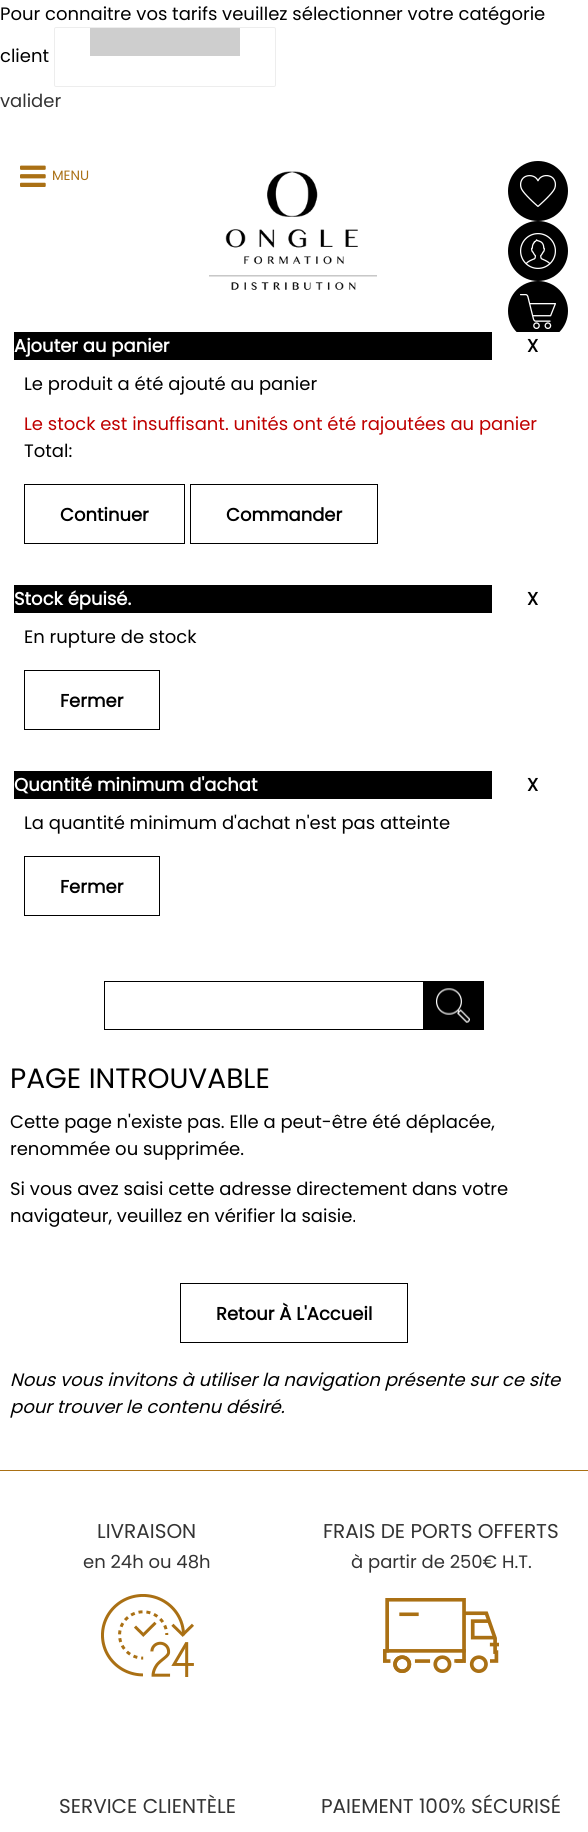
import math
import cairo

surface = cairo.ImageSurface(cairo.Format.RGB24, 588, 1832)
ctx = cairo.Context(surface)
options = cairo.FontOptions()
options.set_hint_metrics(cairo.HintMetrics.OFF)
options.set_hint_style(cairo.HintStyle.NONE)
ctx.set_font_options(options)
ctx.set_miter_limit(4)


def ink(r, g, b):
    ctx.set_source_rgb(r / 255, g / 255, b / 255)


def write(x, y, s, family, size, color, bold=False, italic=False):
    ctx.select_font_face(family, cairo.FontSlant.ITALIC if italic else cairo.FontSlant.NORMAL, cairo.FontWeight.BOLD if bold else cairo.FontWeight.NORMAL)
    ctx.set_font_size(size)
    ink(*color)
    ctx.move_to(x, y)
    ctx.show_text(s)


def block(x, y, w, h, *color):
    ink(*color)
    ctx.rectangle(x, y, w, h)
    ctx.fill()


def round_path(x, y, w, h, r):
    ctx.new_sub_path()
    for i, (u, v) in enumerate([(x + w - r, y + h - r), (x + r, y + h - r), (x + r, y + r), (x + w - r, y + r)]):
        ctx.arc(u, v, r, i * math.pi / 2, (i + 1) * math.pi / 2)
    ctx.close_path()


def paste(path, x, y, w, h):
    ctx.save()
    ctx.set_source_surface(cairo.ImageSurface.create_from_png(path), x, y)
    ctx.rectangle(x, y, w, h)
    ctx.fill()
    ctx.restore()


s1 = dict(family="Poppins", size=18, color=(0, 0, 0))
s2 = dict(family="Poppins", size=18, color=(51, 51, 51))
s3 = dict(family="Poppins", size=13.5, color=(170, 112, 20))
s4 = dict(family="Poppins", size=18, color=(255, 255, 255), bold=True)
s5 = dict(family="Poppins", size=18, color=(0, 0, 0), bold=True)
s6 = dict(family="Poppins", size=18, color=(191, 0, 0))
s7 = dict(family="Poppins", size=28, color=(0, 0, 0))
s8 = dict(family="Poppins", size=18, color=(0, 0, 0), italic=True)
s9 = dict(family="Poppins", size=20, color=(51, 51, 51))

ink(255, 255, 255)
ctx.paint()
write(0, 20, "Pour connaitre vos tarifs veuillez sélectionner votre catégorie", **s1)
write(0, 62, "client", **s1)
round_path(54.5, 27.5, 221, 59, 1.5)
ink(237, 237, 237)
ctx.set_line_width(1)
ctx.stroke()
block(90, 28, 150, 28, 206, 206, 206)
write(0, 107, "valider", **s2)
paste("pic1.png", 20, 165, 26, 22)
write(52, 180, "MENU", **s3)
paste("pic2.png", 209, 171, 168, 119)
ink(0, 0, 0)
ctx.arc(538, 191, 30, 0, 2 * math.pi)
ctx.fill()
paste("pic3.png", 520, 175, 36, 32)
ctx.arc(538, 251, 30, 0, 2 * math.pi)
ctx.fill()
paste("pic4.png", 520, 233, 36, 36)
ctx.arc(538, 311, 30, 0, 2 * math.pi)
ctx.fill()
paste("pic5.png", 520, 294, 36, 35)
block(14, 332, 478, 28, 0, 0, 0)
write(14, 352, "Ajouter au panier", **s4)
block(516, 332, 44, 9, 255, 255, 255)
write(527, 352, "X", **s5)
write(24, 390, "Le produit a été ajouté au panier", **s1)
write(24, 430, "Le stock est insuffisant. unités ont été rajoutées au panier", **s6)
write(24, 457, "Total:", **s1)
ctx.rectangle(24.5, 484.5, 160, 59)
ctx.stroke()
write(60, 521, "Continuer", **s5)
ctx.rectangle(190.5, 484.5, 187, 59)
ctx.stroke()
write(226, 521, "Commander", **s5)
block(14, 585, 478, 28, 0, 0, 0)
write(14, 605, "Stock épuisé.", **s4)
write(527, 605, "X", **s5)
write(24, 643, "En rupture de stock", **s1)
ctx.rectangle(24.5, 670.5, 135, 59)
ctx.stroke()
write(60, 707, "Fermer", **s5)
block(14, 771, 478, 28, 0, 0, 0)
write(14, 791, "Quantité minimum d'achat", **s4)
write(527, 791, "X", **s5)
write(24, 829, "La quantité minimum d'achat n'est pas atteinte", **s1)
ctx.rectangle(24.5, 856.5, 135, 59)
ctx.stroke()
write(60, 893, "Fermer", **s5)
ctx.rectangle(104.5, 981.5, 379, 48)
ctx.stroke()
block(423, 982, 60, 47, 0, 0, 0)
paste("pic6.png", 436, 988, 34, 35)
write(10, 1088, "PAGE INTROUVABLE", **s7)
write(10, 1128, "Cette page n'existe pas. Elle a peut-être été déplacée,", **s1)
write(10, 1155, "renommée ou supprimée.", **s1)
write(10, 1195, "Si vous avez saisi cette adresse directement dans votre", **s1)
write(10, 1222, "navigateur, veuillez en vérifier la saisie.", **s1)
ctx.rectangle(180.5, 1283.5, 227, 59)
ctx.stroke()
write(216, 1320, "Retour À L'Accueil", **s5)
write(10, 1386, "Nous vous invitons à utiliser la navigation présente sur ce site", **s8)
write(10, 1413, "pour trouver le contenu désiré.", **s8)
block(0, 1470, 588, 1, 170, 112, 20)
write(97, 1538, "LIVRAISON", **s9)
write(83, 1568, "en 24h ou 48h", **s2)
paste("pic7.png", 101, 1594, 93, 83)
write(323, 1538, "FRAIS DE PORTS OFFERTS", **s9)
write(351, 1568, "à partir de 250€ H.T.", **s2)
paste("pic8.png", 383, 1598, 116, 75)
write(59, 1813, "SERVICE CLIENTÈLE", **s9)
write(321, 1813, "PAIEMENT 100% SÉCURISÉ", **s9)
surface.write_to_png("screenshot.png")
